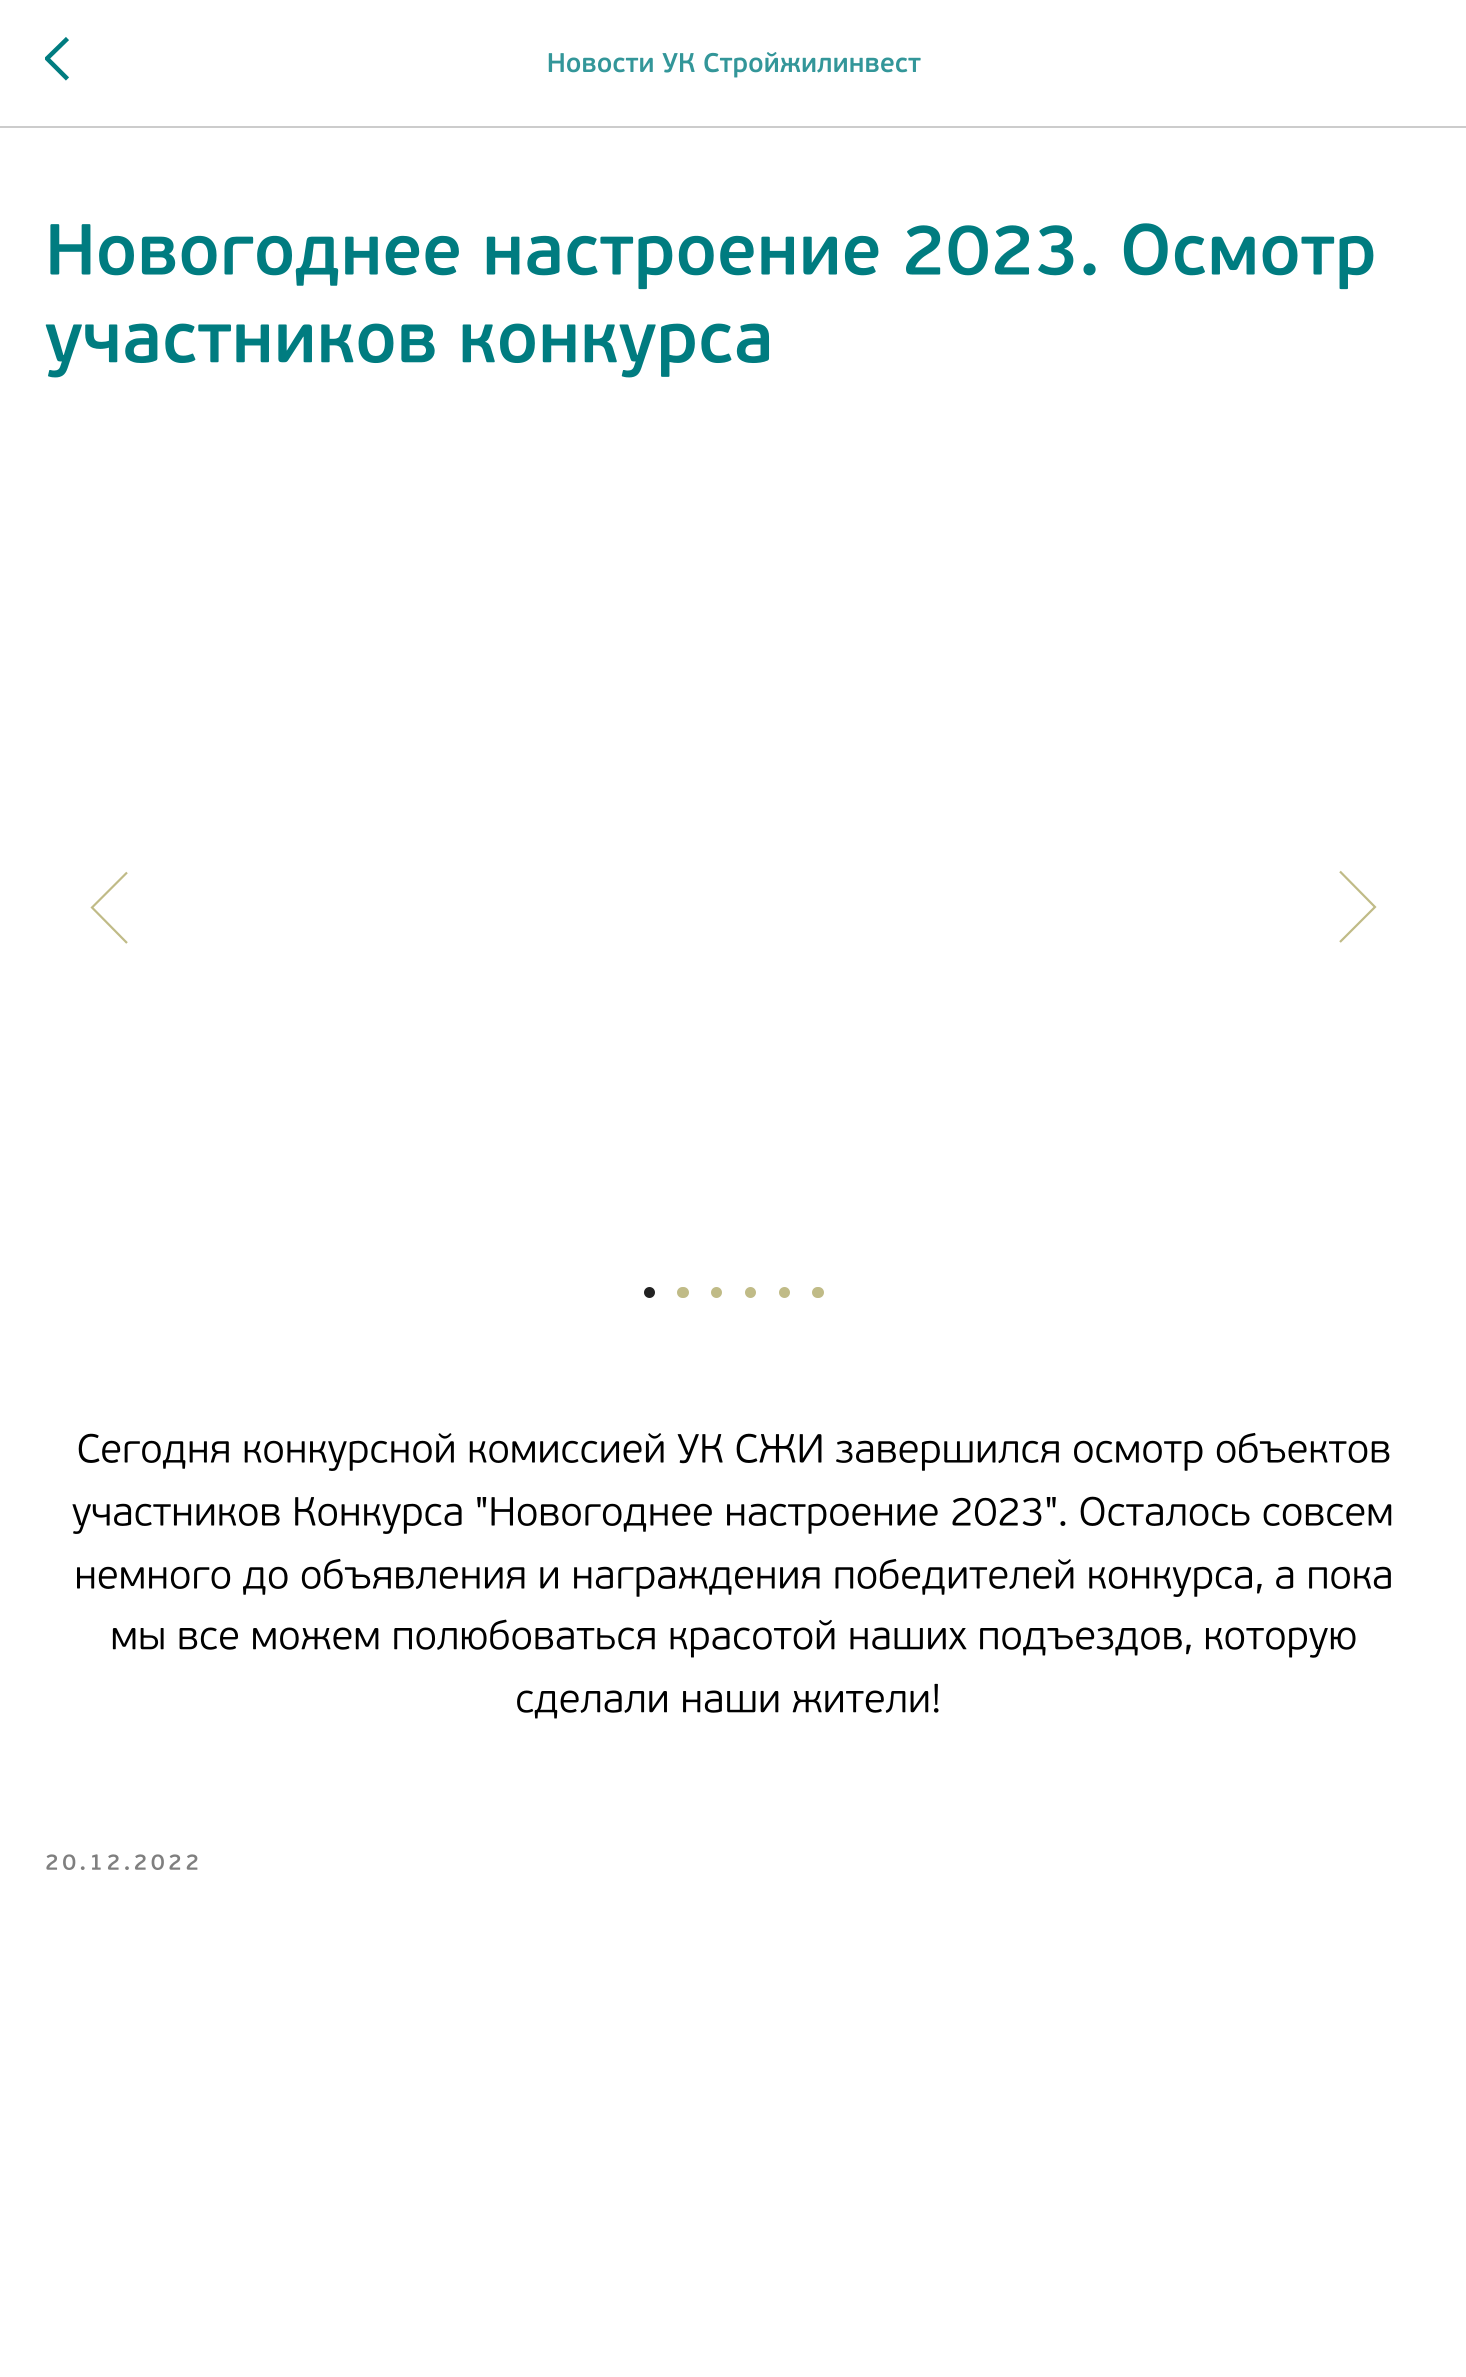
import math
import cairo

surface = cairo.ImageSurface(cairo.Format.RGB24, 1466, 2377)
ctx = cairo.Context(surface)
options = cairo.FontOptions()
options.set_hint_metrics(cairo.HintMetrics.OFF)
options.set_hint_style(cairo.HintStyle.NONE)
ctx.set_font_options(options)
ctx.set_miter_limit(4)


def ink(r, g, b):
    ctx.set_source_rgb(r / 255, g / 255, b / 255)


def block(x, y, w, h, *color):
    ink(*color)
    ctx.rectangle(x, y, w, h)
    ctx.fill()


def round_path(x, y, w, h, r):
    ctx.new_sub_path()
    for i, (u, v) in enumerate([(x + w - r, y + h - r), (x + r, y + h - r), (x + r, y + r), (x + w - r, y + r)]):
        ctx.arc(u, v, r, i * math.pi / 2, (i + 1) * math.pi / 2)
    ctx.close_path()


def paste(path, x, y, w, h):
    ctx.save()
    ctx.set_source_surface(cairo.ImageSurface.create_from_png(path), x, y)
    ctx.rectangle(x, y, w, h)
    ctx.fill()
    ctx.restore()


ink(255, 255, 255)
ctx.paint()
block(0, 126, 1466, 2, 204, 204, 204)
ctx.save()
ctx.rectangle(45, 36, 25, 45)
ctx.clip()
ctx.new_path()
ctx.move_to(67.5, 79)
ctx.line_to(47, 58.5)
ctx.line_to(67.5, 38.5)
ink(0, 124, 128)
ctx.set_line_width(4.5)
ctx.stroke()
ctx.restore()
paste("pic1.png", 548, 52, 373, 26)
paste("pic2.png", 50, 223, 1324, 67)
paste("pic3.png", 45, 323, 725, 55)
ctx.new_path()
ctx.move_to(127, 943)
ctx.line_to(92, 907.5)
ctx.line_to(127, 872.5)
ink(192, 187, 135)
ctx.set_line_width(2.2)
ctx.stroke()
ctx.new_path()
ctx.move_to(1340, 871.5)
ctx.line_to(1375, 907)
ctx.line_to(1340, 942)
ctx.stroke()
ink(34, 34, 34)
ctx.arc(649.5, 1292.5, 5.5, 0, 2 * math.pi)
ctx.fill()
ink(192, 187, 135)
round_path(677, 1287, 12, 11, 5.5)
ctx.fill()
ctx.arc(716.5, 1292.5, 5.5, 0, 2 * math.pi)
ctx.fill()
ctx.arc(750.5, 1292.5, 5.5, 0, 2 * math.pi)
ctx.fill()
ctx.arc(784.5, 1292.5, 5.5, 0, 2 * math.pi)
ctx.fill()
round_path(812, 1287, 12, 11, 5.5)
ctx.fill()
paste("pic4.png", 78, 1432, 1312, 39)
paste("pic5.png", 72, 1496, 1320, 38)
paste("pic6.png", 77, 1558, 1314, 39)
paste("pic7.png", 112, 1619, 1244, 39)
paste("pic8.png", 517, 1683, 422, 36)
paste("pic9.png", 46, 1854, 152, 16)
surface.write_to_png("screenshot.png")
